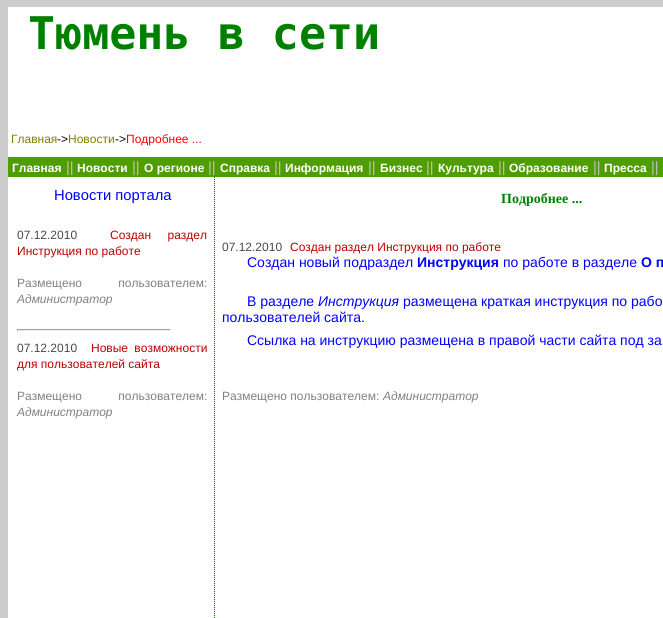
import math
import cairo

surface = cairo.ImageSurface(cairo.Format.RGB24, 663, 618)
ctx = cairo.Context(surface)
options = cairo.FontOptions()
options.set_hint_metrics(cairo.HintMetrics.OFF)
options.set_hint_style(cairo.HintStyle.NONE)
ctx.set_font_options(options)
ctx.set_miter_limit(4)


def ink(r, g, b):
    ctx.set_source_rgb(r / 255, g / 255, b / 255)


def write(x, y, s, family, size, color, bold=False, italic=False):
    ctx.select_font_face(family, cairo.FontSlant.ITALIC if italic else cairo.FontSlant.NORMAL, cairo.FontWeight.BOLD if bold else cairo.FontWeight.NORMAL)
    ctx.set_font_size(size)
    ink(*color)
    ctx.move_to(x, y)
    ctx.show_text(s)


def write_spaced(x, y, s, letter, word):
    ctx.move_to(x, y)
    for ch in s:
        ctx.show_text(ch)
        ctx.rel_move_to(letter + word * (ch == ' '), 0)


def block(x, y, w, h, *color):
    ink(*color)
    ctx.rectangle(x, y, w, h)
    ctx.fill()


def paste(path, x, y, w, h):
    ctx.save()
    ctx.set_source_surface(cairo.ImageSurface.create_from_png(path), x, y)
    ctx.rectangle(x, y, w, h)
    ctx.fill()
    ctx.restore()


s1 = dict(family="DejaVu Sans Mono", size=45, color=(0, 128, 0), bold=True)
s2 = dict(family="Liberation Sans", size=12, color=(128, 128, 0))
s3 = dict(family="Liberation Sans", size=12, color=(0, 0, 0))
s4 = dict(family="Liberation Sans", size=12, color=(255, 0, 0))
s5 = dict(family="Liberation Sans", size=12, color=(255, 255, 255), bold=True)
s6 = dict(family="Liberation Sans", size=14.75, color=(192, 192, 192))
s7 = dict(family="Liberation Sans", size=14.75, color=(0, 0, 255))
s8 = dict(family="Liberation Sans", size=12, color=(73, 73, 73))
s9 = dict(family="Liberation Sans", size=12, color=(187, 0, 0))
s10 = dict(family="Liberation Sans", size=12, color=(128, 128, 128), italic=True)
s11 = dict(family="Liberation Serif", size=14, color=(0, 128, 0), bold=True)
s12 = dict(family="Liberation Sans", size=14, color=(0, 0, 255))
s13 = dict(family="Liberation Sans", size=14, color=(0, 0, 255), bold=True)
s14 = dict(family="Liberation Sans", size=14, color=(0, 0, 255), italic=True)
s15 = dict(family="Liberation Sans", size=12, color=(128, 128, 128))

ink(204, 204, 204)
ctx.paint()
block(8, 7, 655, 611, 255, 255, 255)
write(28, 49, "Тюмень в сети", **s1)
write(11, 143, "Главная", **s2)
write(57, 143, "->", **s3)
write(68, 143, "Новости", **s2)
write(115, 143, "->", **s3)
write(126, 143, "Подробнее ...", **s4)
block(8, 157, 655, 20, 79, 157, 0)
write(12, 172, "Главная", **s5)
write(66, 172, "||", **s6)
write(77, 172, "Новости", **s5)
write(132, 172, "||", **s6)
write(144, 172, "О регионе", **s5)
write(208, 172, "||", **s6)
write(220, 172, "Справка", **s5)
write(274, 172, "||", **s6)
write(285, 172, "Информация", **s5)
write(368, 172, "||", **s6)
write(380, 172, "Бизнес", **s5)
write(426, 172, "||", **s6)
write(438, 172, "Культура", **s5)
write(498, 172, "||", **s6)
write(509, 172, "Образование", **s5)
write(593, 172, "||", **s6)
write(604, 172, "Пресса", **s5)
write(651, 172, "||", **s6)
write(54, 200, "Новости портала", **s7)
write(17, 239, "07.12.2010", **s8)
ink(187, 0, 0)
write_spaced(110, 239, "Создан раздел", 0, 13)
write(17, 255, "Инструкция по работе", **s9)
ink(128, 128, 128)
write_spaced(17, 287, "Размещено пользователем:", 0, 33)
write(17, 303, "Администратор", **s10)
block(17, 329, 154, 1, 159, 159, 159)
block(170, 329, 1, 2, 238, 238, 238)
block(17, 330, 154, 1, 238, 238, 238)
block(17, 329, 1, 2, 159, 159, 159)
write(17, 352, "07.12.2010", **s8)
ink(187, 0, 0)
write_spaced(91, 352, "Новые возможности", 0, 3)
write(17, 368, "для пользователей сайта", **s9)
ink(128, 128, 128)
write_spaced(17, 400, "Размещено пользователем:", 0, 33)
write(17, 416, "Администратор", **s10)
paste("pic1.png", 214, 177, 1, 441)
write(501, 203, "Подробнее ...", **s11)
write(222, 251, "07.12.2010", **s8)
write(290, 251, "Создан раздел Инструкция по работе", **s9)
write(247, 267, "Создан новый подраздел", **s12)
write(417, 267, "Инструкция", **s13)
write(503, 267, "по работе в разделе", **s12)
write(641, 267, "О п", **s13)
write(247, 306, "В разделе", **s12)
write(318, 306, "Инструкция", **s14)
write(403, 306, "размещена краткая инструкция по рабо", **s12)
write(222, 322, "пользователей сайта.", **s12)
write(247, 345, "Ссылка на инструкцию размещена в правой части сайта под за", **s12)
write(222, 400, "Размещено пользователем:", **s15)
write(383, 400, "Администратор", **s10)
surface.write_to_png("screenshot.png")
